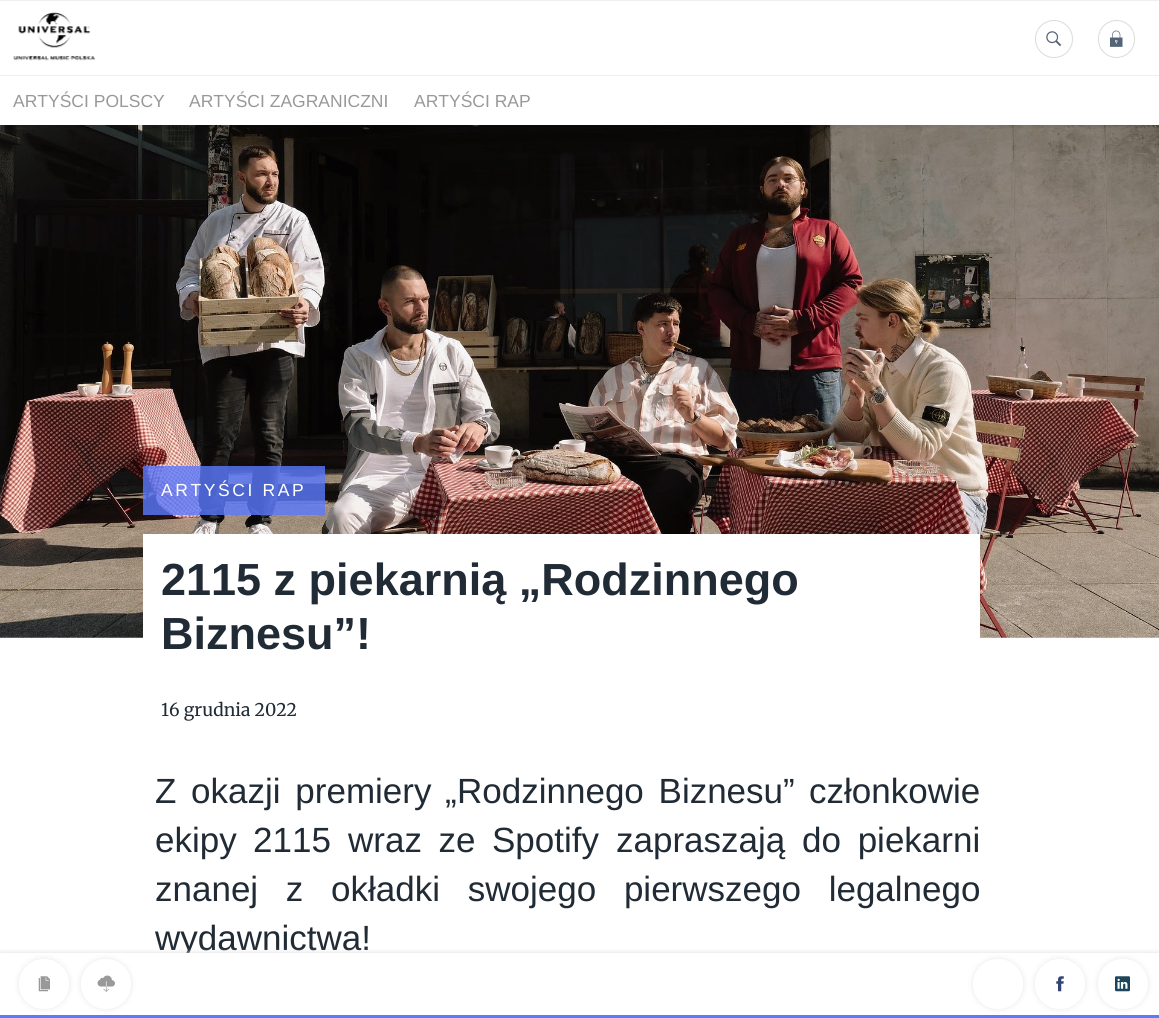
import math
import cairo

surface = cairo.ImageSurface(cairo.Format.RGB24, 1159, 1018)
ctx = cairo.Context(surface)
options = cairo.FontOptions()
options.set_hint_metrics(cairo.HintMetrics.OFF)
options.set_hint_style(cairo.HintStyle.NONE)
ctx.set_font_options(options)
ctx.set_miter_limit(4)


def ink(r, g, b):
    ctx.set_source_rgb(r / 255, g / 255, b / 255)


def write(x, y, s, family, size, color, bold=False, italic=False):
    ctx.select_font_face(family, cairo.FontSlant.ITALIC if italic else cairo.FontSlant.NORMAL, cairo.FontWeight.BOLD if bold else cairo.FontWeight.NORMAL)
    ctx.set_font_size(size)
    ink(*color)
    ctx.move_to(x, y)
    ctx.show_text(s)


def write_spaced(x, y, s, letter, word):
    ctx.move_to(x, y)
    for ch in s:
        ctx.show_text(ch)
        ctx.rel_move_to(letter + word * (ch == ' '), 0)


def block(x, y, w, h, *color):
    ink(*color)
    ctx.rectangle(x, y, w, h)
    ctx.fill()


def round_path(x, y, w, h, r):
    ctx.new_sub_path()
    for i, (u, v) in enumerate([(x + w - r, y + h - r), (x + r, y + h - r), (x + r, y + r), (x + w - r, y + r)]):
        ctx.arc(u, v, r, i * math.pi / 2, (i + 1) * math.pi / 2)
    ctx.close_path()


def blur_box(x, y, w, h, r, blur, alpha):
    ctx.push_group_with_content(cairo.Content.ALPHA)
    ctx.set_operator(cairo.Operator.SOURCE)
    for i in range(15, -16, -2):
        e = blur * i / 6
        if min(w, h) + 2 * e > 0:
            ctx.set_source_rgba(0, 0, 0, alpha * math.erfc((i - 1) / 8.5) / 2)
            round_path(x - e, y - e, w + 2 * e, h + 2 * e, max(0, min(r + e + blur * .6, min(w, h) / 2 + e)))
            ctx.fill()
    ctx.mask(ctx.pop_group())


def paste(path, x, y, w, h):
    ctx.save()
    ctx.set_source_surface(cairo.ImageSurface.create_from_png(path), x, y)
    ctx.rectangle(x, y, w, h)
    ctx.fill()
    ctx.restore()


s1 = dict(family="Liberation Sans", size=17.5, color=(153, 153, 153))
s2 = dict(family="Liberation Sans", size=45, color=(33, 43, 53), bold=True)
s3 = dict(family="Merriweather", size=17.5, color=(33, 43, 53))
s4 = dict(family="Liberation Sans", size=35, color=(33, 43, 53))

ink(255, 255, 255)
ctx.paint()
paste("pic4.png", 0, 125, 1159, 513)
ink(0, 0, 0)
blur_box(0, 3, 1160, 125, 0, 1, 0.06)
block(0, 2, 1159, 123, 255, 255, 255)
block(0, 0, 1159, 1, 239, 239, 239)
paste("pic1.png", 13, 12, 82, 49)
ctx.arc(1054, 39, 18.5, 0, 2 * math.pi)
ink(219, 219, 219)
ctx.set_line_width(1)
ctx.stroke()
paste("pic2.png", 1046, 31, 16, 16)
round_path(1098.5, 20.5, 36, 37, 18)
ctx.stroke()
paste("pic3.png", 1110, 30, 13, 17)
block(0, 75, 1159, 1, 239, 239, 239)
write(13, 107, "ARTYŚCI POLSCY", **s1)
write(189, 107, "ARTYŚCI ZAGRANICZNI", **s1)
write(414, 107, "ARTYŚCI RAP", **s1)
ctx.set_source_rgba(0.353, 0.475, 1, 0.8)
ctx.rectangle(143, 466, 182, 49)
ctx.fill()
ink(255, 255, 255)
write_spaced(161, 496, "ARTYŚCI RAP", 2.6, 0)
block(143, 534, 837, 104, 255, 255, 255)
write(161, 595, "2115 z piekarnią „Rodzinnego", **s2)
write(161, 649, "Biznesu”!", **s2)
write(161, 716, "16 grudnia 2022", **s3)
ctx.select_font_face("Liberation Sans")
ctx.set_font_size(35)
write_spaced(155, 803, "Z okazji premiery", 0, 5)
write(445, 803, "„", **s4)
write_spaced(457, 803, "Rodzinnego Biznesu”", 0, 5)
write(809, 803, "członkowie", **s4)
write(155, 852, "ekipy", **s4)
write(253, 852, "2115", **s4)
write_spaced(348, 852, "wraz ze", 0, 7)
write(492, 852, "Spotify", **s4)
write_spaced(616, 852, "zapraszają do piekarni", 0, 7)
write_spaced(155, 901, "znanej z okładki swojego pierwszego legalnego", 0, 18)
write(155, 950, "wydawnictwa!", **s4)
ink(219, 219, 219)
blur_box(0, 953, 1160, 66, 0, 2.5, 1)
block(0, 953, 1159, 62, 255, 255, 255)
block(0, 1015, 1159, 3, 90, 121, 255)
ctx.save()
ctx.set_fill_rule(cairo.FillRule.EVEN_ODD)
ctx.new_path()
ctx.move_to(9, 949)
ctx.line_to(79, 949)
ctx.line_to(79, 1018)
ctx.line_to(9, 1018)
ctx.close_path()
ctx.move_to(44, 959)
ctx.curve_to(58, 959, 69, 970, 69, 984)
ctx.curve_to(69, 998, 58, 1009, 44, 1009)
ctx.curve_to(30, 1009, 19, 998, 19, 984)
ctx.curve_to(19, 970, 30, 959, 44, 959)
ctx.close_path()
ctx.clip()
ink(0, 0, 0)
blur_box(19, 959, 50, 50, 25, 3, 0.1)
ctx.restore()
paste("pic5.png", 38, 976, 12, 16)
ctx.save()
ctx.set_fill_rule(cairo.FillRule.EVEN_ODD)
ctx.new_path()
ctx.move_to(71, 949)
ctx.line_to(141, 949)
ctx.line_to(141, 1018)
ctx.line_to(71, 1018)
ctx.close_path()
ctx.move_to(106, 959)
ctx.curve_to(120, 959, 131, 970, 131, 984)
ctx.curve_to(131, 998, 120, 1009, 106, 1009)
ctx.curve_to(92, 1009, 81, 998, 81, 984)
ctx.curve_to(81, 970, 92, 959, 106, 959)
ctx.close_path()
ctx.clip()
ink(0, 0, 0)
blur_box(81, 959, 50, 50, 25, 3, 0.1)
ctx.restore()
paste("pic6.png", 97, 975, 18, 17)
ctx.save()
ctx.set_fill_rule(cairo.FillRule.EVEN_ODD)
ctx.new_path()
ctx.move_to(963, 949)
ctx.line_to(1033, 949)
ctx.line_to(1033, 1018)
ctx.line_to(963, 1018)
ctx.close_path()
ctx.move_to(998, 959)
ctx.curve_to(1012, 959, 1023, 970, 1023, 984)
ctx.curve_to(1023, 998, 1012, 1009, 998, 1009)
ctx.curve_to(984, 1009, 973, 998, 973, 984)
ctx.curve_to(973, 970, 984, 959, 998, 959)
ctx.close_path()
ctx.clip()
ink(0, 0, 0)
blur_box(973, 959, 50, 50, 25, 3, 0.1)
ctx.restore()
ctx.save()
ctx.set_fill_rule(cairo.FillRule.EVEN_ODD)
ctx.new_path()
ctx.move_to(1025, 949)
ctx.line_to(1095, 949)
ctx.line_to(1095, 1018)
ctx.line_to(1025, 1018)
ctx.close_path()
ctx.move_to(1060, 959)
ctx.curve_to(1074, 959, 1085, 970, 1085, 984)
ctx.curve_to(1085, 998, 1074, 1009, 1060, 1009)
ctx.curve_to(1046, 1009, 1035, 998, 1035, 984)
ctx.curve_to(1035, 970, 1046, 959, 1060, 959)
ctx.close_path()
ctx.clip()
ink(0, 0, 0)
blur_box(1035, 959, 50, 50, 25, 3, 0.1)
ctx.restore()
paste("pic7.png", 1056, 976, 8, 16)
ctx.save()
ctx.set_fill_rule(cairo.FillRule.EVEN_ODD)
ctx.new_path()
ctx.move_to(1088, 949)
ctx.line_to(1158, 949)
ctx.line_to(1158, 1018)
ctx.line_to(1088, 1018)
ctx.close_path()
ctx.move_to(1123, 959)
ctx.curve_to(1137, 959, 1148, 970, 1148, 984)
ctx.curve_to(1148, 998, 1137, 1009, 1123, 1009)
ctx.curve_to(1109, 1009, 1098, 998, 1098, 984)
ctx.curve_to(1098, 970, 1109, 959, 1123, 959)
ctx.close_path()
ctx.clip()
ink(0, 0, 0)
blur_box(1098, 959, 50, 50, 25, 3, 0.1)
ctx.restore()
paste("pic8.png", 1115, 976, 15, 16)
surface.write_to_png("screenshot.png")
